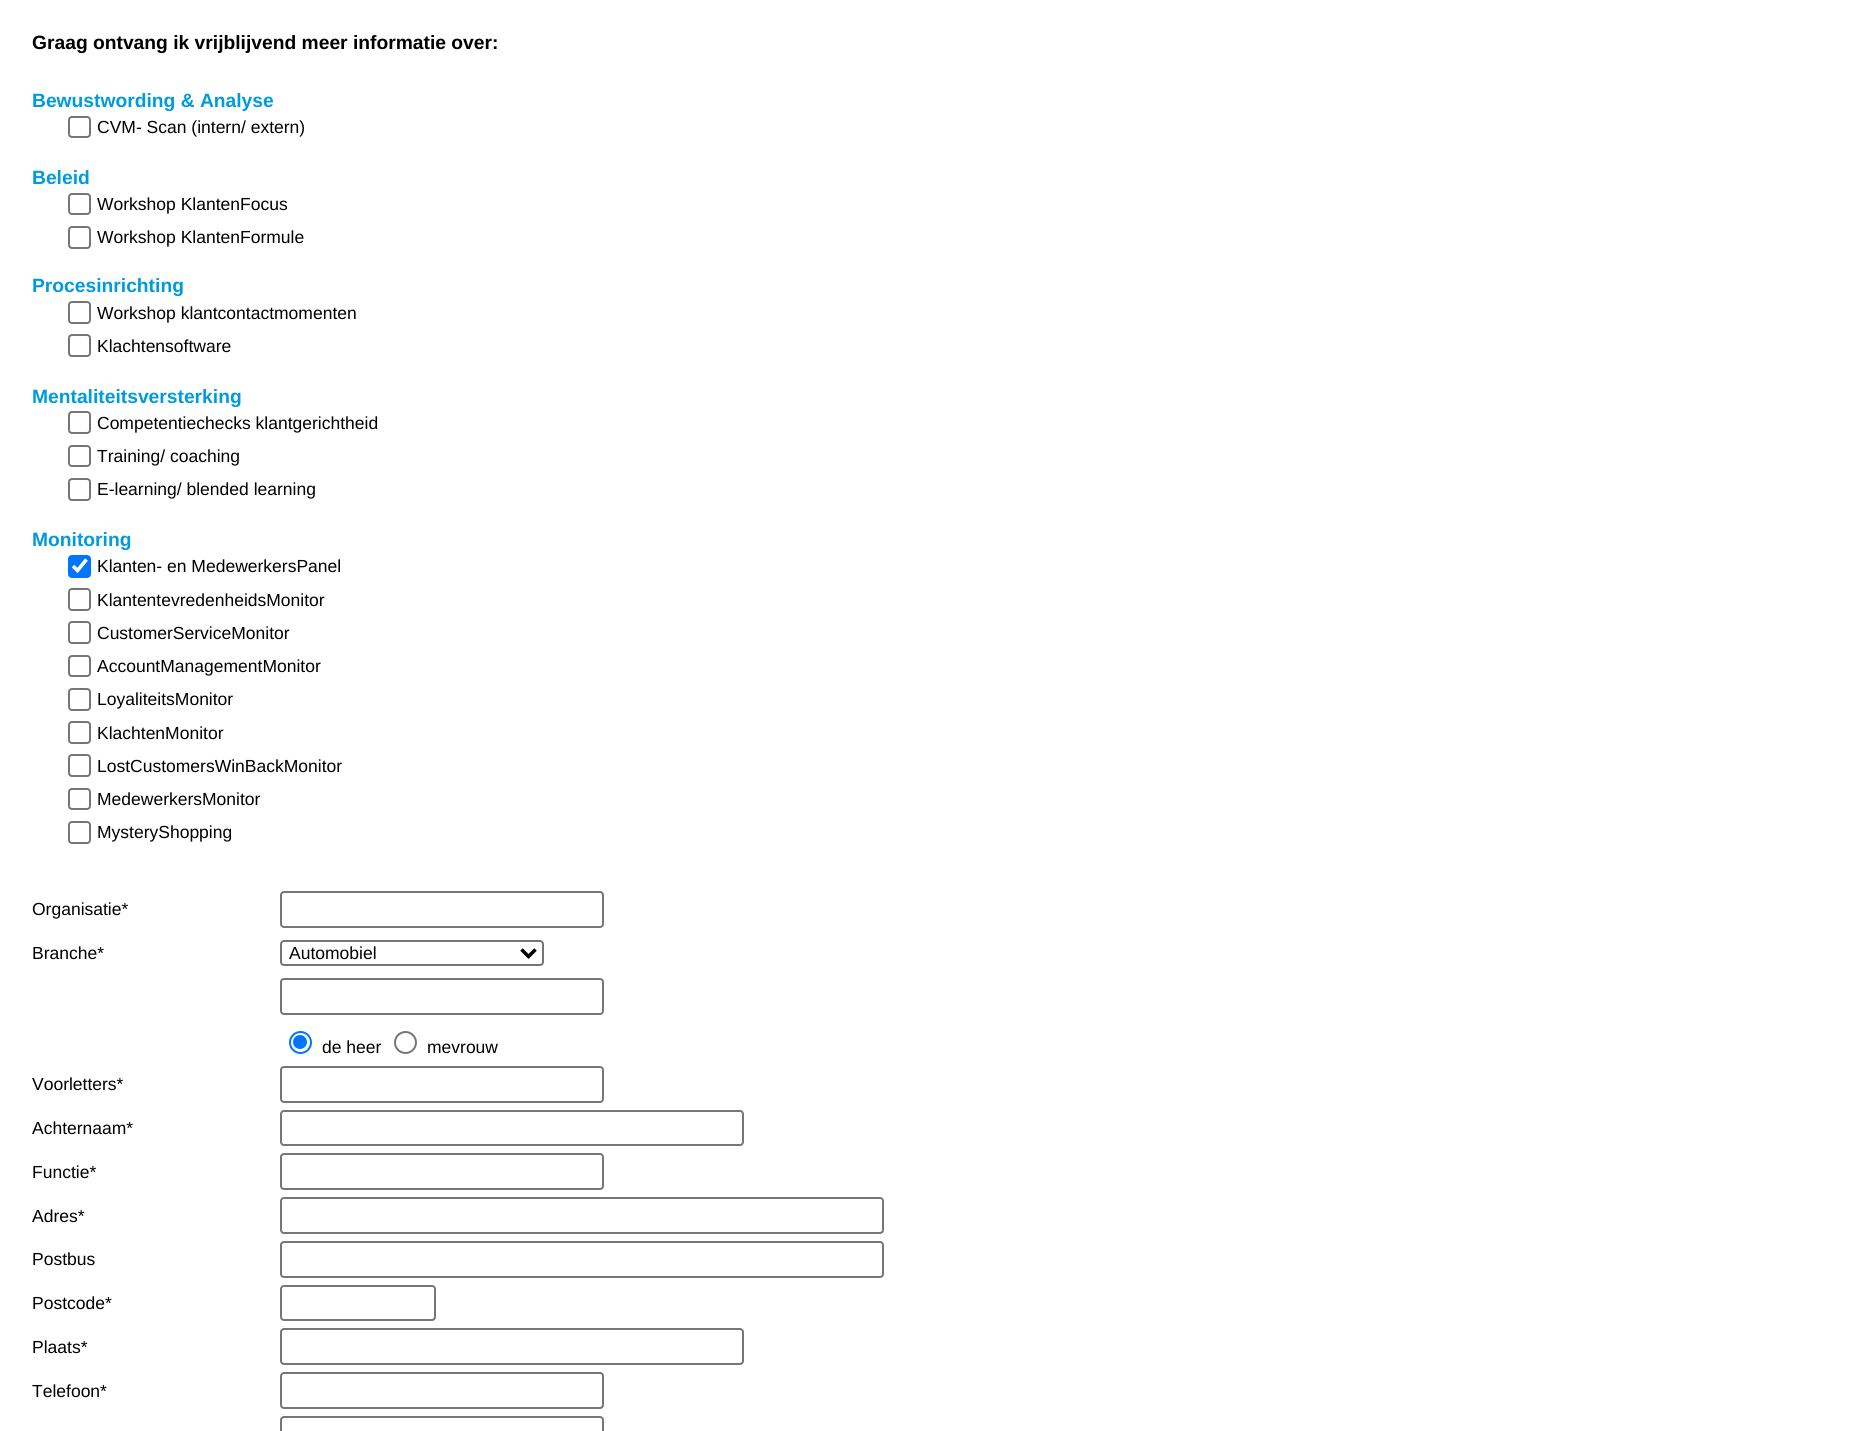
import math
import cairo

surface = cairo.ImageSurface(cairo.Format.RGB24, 1850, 1431)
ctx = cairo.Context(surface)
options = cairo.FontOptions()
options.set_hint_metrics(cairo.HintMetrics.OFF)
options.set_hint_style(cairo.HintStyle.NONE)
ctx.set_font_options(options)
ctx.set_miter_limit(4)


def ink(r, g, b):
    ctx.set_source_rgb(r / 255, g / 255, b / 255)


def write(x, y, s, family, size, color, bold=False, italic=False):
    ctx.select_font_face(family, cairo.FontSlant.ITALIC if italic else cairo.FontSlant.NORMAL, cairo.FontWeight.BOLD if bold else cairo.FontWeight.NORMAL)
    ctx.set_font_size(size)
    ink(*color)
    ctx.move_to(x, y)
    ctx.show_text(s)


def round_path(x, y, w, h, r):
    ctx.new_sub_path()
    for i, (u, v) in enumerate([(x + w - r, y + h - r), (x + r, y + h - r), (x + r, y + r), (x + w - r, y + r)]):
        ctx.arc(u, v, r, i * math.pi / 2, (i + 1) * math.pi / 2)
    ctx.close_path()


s1 = dict(family="Liberation Sans", size=19.25, color=(0, 0, 0), bold=True)
s2 = dict(family="Liberation Sans", size=19.25, color=(0, 155, 220), bold=True)
s3 = dict(family="Liberation Sans", size=17.5, color=(0, 0, 0))

ink(255, 255, 255)
ctx.paint()
write(32, 49, "Graag ontvang ik vrijblijvend meer informatie over:", **s1)
write(32, 107, "Bewustwording & Analyse", **s2)
round_path(69, 117, 21, 20, 3)
ink(118, 118, 118)
ctx.stroke()
write(97, 133, "CVM- Scan (intern/ extern)", **s3)
write(32, 184, "Beleid", **s2)
round_path(69, 194, 21, 20, 3)
ink(118, 118, 118)
ctx.stroke()
write(97, 210, "Workshop KlantenFocus", **s3)
round_path(69, 227, 21, 21, 3)
ink(118, 118, 118)
ctx.stroke()
write(97, 243, "Workshop KlantenFormule", **s3)
write(32, 292, "Procesinrichting", **s2)
round_path(69, 302, 21, 21, 3)
ink(118, 118, 118)
ctx.stroke()
write(97, 319, "Workshop klantcontactmomenten", **s3)
round_path(69, 335, 21, 21, 3)
ink(118, 118, 118)
ctx.stroke()
write(97, 352, "Klachtensoftware", **s3)
write(32, 403, "Mentaliteitsversterking", **s2)
round_path(69, 412, 21, 21, 3)
ink(118, 118, 118)
ctx.stroke()
write(97, 429, "Competentiechecks klantgerichtheid", **s3)
round_path(69, 446, 21, 20, 3)
ink(118, 118, 118)
ctx.stroke()
write(97, 462, "Training/ coaching", **s3)
round_path(69, 479, 21, 21, 3)
ink(118, 118, 118)
ctx.stroke()
write(97, 495, "E-learning/ blended learning", **s3)
write(32, 546, "Monitoring", **s2)
ink(0, 117, 255)
round_path(68, 555, 23, 23, 4)
ctx.fill()
ctx.new_path()
ctx.move_to(73, 566)
ctx.line_to(77.5, 570.5)
ctx.line_to(86.5, 559.5)
ink(255, 255, 255)
ctx.set_line_width(3.6)
ctx.stroke()
write(97, 572, "Klanten- en MedewerkersPanel", **s3)
round_path(69, 589, 21, 21, 3)
ink(118, 118, 118)
ctx.set_line_width(2)
ctx.stroke()
write(97, 606, "KlantentevredenheidsMonitor", **s3)
round_path(69, 622, 21, 21, 3)
ink(118, 118, 118)
ctx.stroke()
write(97, 639, "CustomerServiceMonitor", **s3)
round_path(69, 656, 21, 20, 3)
ink(118, 118, 118)
ctx.stroke()
write(97, 672, "AccountManagementMonitor", **s3)
round_path(69, 689, 21, 21, 3)
ink(118, 118, 118)
ctx.stroke()
write(97, 705, "LoyaliteitsMonitor", **s3)
round_path(69, 722, 21, 21, 3)
ink(118, 118, 118)
ctx.stroke()
write(97, 739, "KlachtenMonitor", **s3)
round_path(69, 755, 21, 21, 3)
ink(118, 118, 118)
ctx.stroke()
write(97, 772, "LostCustomersWinBackMonitor", **s3)
round_path(69, 789, 21, 20, 3)
ink(118, 118, 118)
ctx.stroke()
write(97, 805, "MedewerkersMonitor", **s3)
round_path(69, 822, 21, 21, 3)
ink(118, 118, 118)
ctx.stroke()
write(97, 838, "MysteryShopping", **s3)
write(32, 915, "Organisatie*", **s3)
round_path(281, 892, 322, 35, 3)
ink(118, 118, 118)
ctx.stroke()
write(32, 959, "Branche*", **s3)
round_path(281, 941, 262, 24, 3)
ink(118, 118, 118)
ctx.stroke()
ctx.new_path()
ctx.move_to(521.5, 949.5)
ctx.line_to(528.5, 956.5)
ctx.line_to(535.5, 949.5)
ink(0, 0, 0)
ctx.set_line_width(3.5)
ctx.stroke()
write(289, 959, "Automobiel", **s3)
round_path(281, 979, 322, 35, 3)
ink(118, 118, 118)
ctx.set_line_width(2)
ctx.stroke()
ctx.arc(300.5, 1042.5, 10.5, 0, 2 * math.pi)
ink(0, 117, 255)
ctx.stroke()
ctx.arc(300, 1042, 7, 0, 2 * math.pi)
ctx.fill()
write(322, 1053, "de heer", **s3)
ctx.new_path()
ctx.arc(405.5, 1042.5, 10.5, 0, 2 * math.pi)
ink(118, 118, 118)
ctx.stroke()
write(427, 1053, "mevrouw", **s3)
write(32, 1090, "Voorletters*", **s3)
round_path(281, 1067, 322, 35, 3)
ink(118, 118, 118)
ctx.stroke()
write(32, 1134, "Achternaam*", **s3)
round_path(281, 1111, 462, 34, 3)
ink(118, 118, 118)
ctx.stroke()
write(32, 1178, "Functie*", **s3)
round_path(281, 1154, 322, 35, 3)
ink(118, 118, 118)
ctx.stroke()
write(32, 1222, "Adres*", **s3)
round_path(281, 1198, 602, 35, 3)
ink(118, 118, 118)
ctx.stroke()
write(32, 1265, "Postbus", **s3)
round_path(281, 1242, 602, 35, 3)
ink(118, 118, 118)
ctx.stroke()
write(32, 1309, "Postcode*", **s3)
round_path(281, 1286, 154, 34, 3)
ink(118, 118, 118)
ctx.stroke()
write(32, 1353, "Plaats*", **s3)
round_path(281, 1329, 462, 35, 3)
ink(118, 118, 118)
ctx.stroke()
write(32, 1397, "Telefoon*", **s3)
round_path(281, 1373, 322, 35, 3)
ink(118, 118, 118)
ctx.stroke()
round_path(281, 1417, 322, 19, 3)
ctx.stroke()
surface.write_to_png("screenshot.png")
